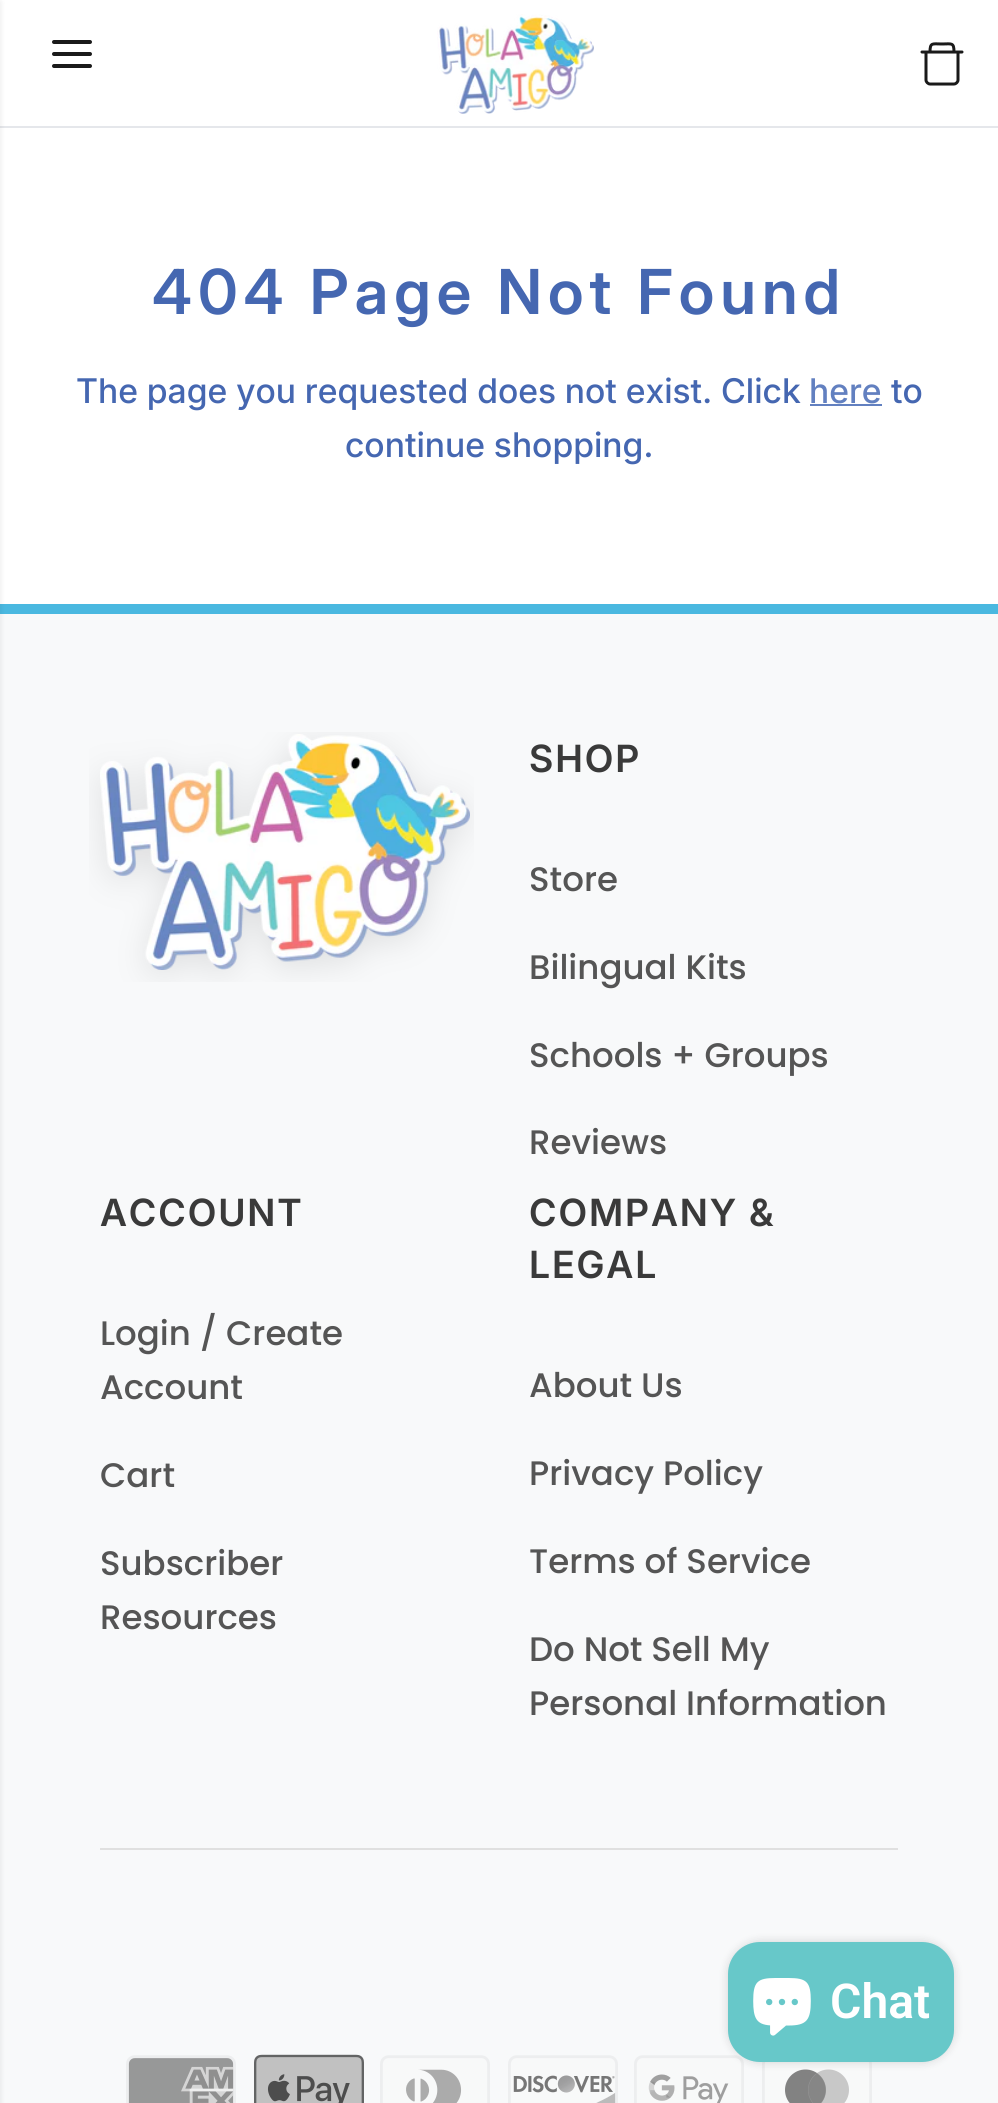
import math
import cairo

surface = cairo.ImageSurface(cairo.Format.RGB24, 998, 2103)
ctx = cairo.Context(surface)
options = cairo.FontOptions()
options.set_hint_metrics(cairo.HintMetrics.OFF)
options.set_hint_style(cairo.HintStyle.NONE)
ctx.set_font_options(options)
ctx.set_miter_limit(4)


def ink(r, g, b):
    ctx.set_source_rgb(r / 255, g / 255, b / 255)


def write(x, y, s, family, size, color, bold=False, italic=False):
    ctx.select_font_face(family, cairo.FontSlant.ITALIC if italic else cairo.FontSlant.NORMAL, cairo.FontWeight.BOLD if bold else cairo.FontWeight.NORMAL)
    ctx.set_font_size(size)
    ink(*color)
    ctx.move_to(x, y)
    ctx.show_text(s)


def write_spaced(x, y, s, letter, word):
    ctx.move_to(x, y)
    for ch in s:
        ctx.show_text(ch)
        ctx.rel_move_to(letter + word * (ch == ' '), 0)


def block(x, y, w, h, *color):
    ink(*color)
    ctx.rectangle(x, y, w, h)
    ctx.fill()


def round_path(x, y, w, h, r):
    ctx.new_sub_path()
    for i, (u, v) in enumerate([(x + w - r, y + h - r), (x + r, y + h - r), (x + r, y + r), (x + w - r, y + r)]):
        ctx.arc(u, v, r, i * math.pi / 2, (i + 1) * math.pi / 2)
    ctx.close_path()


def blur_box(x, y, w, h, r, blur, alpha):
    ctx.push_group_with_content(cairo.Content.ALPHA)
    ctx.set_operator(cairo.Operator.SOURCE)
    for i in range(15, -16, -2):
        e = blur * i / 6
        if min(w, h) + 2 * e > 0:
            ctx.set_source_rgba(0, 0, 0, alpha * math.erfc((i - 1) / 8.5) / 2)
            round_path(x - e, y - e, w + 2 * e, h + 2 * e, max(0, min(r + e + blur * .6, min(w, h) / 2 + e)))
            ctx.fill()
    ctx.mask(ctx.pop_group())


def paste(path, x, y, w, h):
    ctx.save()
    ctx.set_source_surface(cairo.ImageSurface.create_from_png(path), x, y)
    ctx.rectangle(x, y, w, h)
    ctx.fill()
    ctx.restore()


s1 = dict(family="Inter Medium", size=34, color=(69, 103, 177))
s2 = dict(family="Inter Medium", size=34, color=(98, 128, 192))
s3 = dict(family="Poppins Medium", size=34, color=(85, 85, 85))
s4 = dict(family="Roboto SemiBold", size=48, color=(255, 255, 255))

ink(255, 255, 255)
ctx.paint()
block(0, 126, 998, 2, 229, 231, 235)
block(0, 614, 998, 1489, 248, 249, 250)
block(0, 604, 998, 10, 74, 184, 224)
ink(0, 0, 0)
blur_box(-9, 2, 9, 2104, 0, 3, 0.1)
ctx.new_path()
ctx.move_to(54, 54)
ctx.line_to(90, 54)
ctx.move_to(54, 42)
ctx.line_to(90, 42)
ctx.move_to(54, 66)
ctx.line_to(90, 66)
ink(26, 26, 26)
ctx.set_line_width(4)
ctx.set_line_cap(cairo.LineCap.ROUND)
ctx.set_line_join(cairo.LineJoin.ROUND)
ctx.stroke()
paste("pic1.png", 437, 14, 157, 100)
ctx.new_path()
ctx.move_to(930, 52)
ctx.curve_to(930, 42, 932.5, 44, 942, 44)
ctx.curve_to(951.5, 44, 954, 42, 954, 52)
ctx.move_to(922, 52)
ctx.line_to(962, 52)
ctx.move_to(958, 52)
ctx.line_to(958, 80)
ctx.curve_to(958, 82, 956, 84, 954, 84)
ctx.line_to(930, 84)
ctx.curve_to(928, 84, 926, 82, 926, 80)
ctx.line_to(926, 52)
ctx.set_line_width(3)
ctx.stroke()
ctx.select_font_face("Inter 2 SemiBold")
ctx.set_font_size(62)
ink(69, 103, 177)
write_spaced(152, 314, "404 Page Not Found", 6, 0)
write(76, 403, "The page you requested does not exist. Click", **s1)
write(809, 403, "here", **s2)
block(810, 404, 72, 2, 98, 128, 192)
write(891, 403, "to", **s1)
write(345, 457, "continue shopping.", **s1)
paste("pic2.png", 89, 732, 385, 250)
ctx.select_font_face("Inter SemiBold")
ctx.set_font_size(37.5)
ink(58, 58, 58)
write_spaced(529, 772, "SHOP", 1.9, 0)
write(529, 891, "Store", **s3)
write(529, 979, "Bilingual Kits", **s3)
write(529, 1067, "Schools + Groups", **s3)
write(529, 1154, "Reviews", **s3)
ctx.select_font_face("Inter SemiBold")
ctx.set_font_size(37.5)
ink(58, 58, 58)
write_spaced(100, 1226, "ACCOUNT", 1.9, 0)
write(100, 1345, "Login / Create", **s3)
write(100, 1399, "Account", **s3)
write(100, 1487, "Cart", **s3)
write(100, 1575, "Subscriber", **s3)
write(100, 1629, "Resources", **s3)
ctx.select_font_face("Inter SemiBold")
ctx.set_font_size(37.5)
ink(58, 58, 58)
write_spaced(529, 1226, "COMPANY &", 1.9, 0)
write_spaced(529, 1278, "LEGAL", 1.9, 0)
write(529, 1397, "About Us", **s3)
write(529, 1485, "Privacy Policy", **s3)
write(529, 1573, "Terms of Service", **s3)
write(529, 1661, "Do Not Sell My", **s3)
write(529, 1715, "Personal Information", **s3)
block(100, 1848, 798, 2, 224, 224, 224)
paste("pic3.png", 126, 2055, 110, 48)
paste("pic4.png", 254, 2054, 110, 49)
paste("pic5.png", 380, 2055, 110, 48)
paste("pic6.png", 508, 2055, 110, 48)
paste("pic7.png", 634, 2055, 110, 48)
paste("pic8.png", 762, 2062, 110, 41)
ink(0, 0, 0)
blur_box(728, 1942, 226, 120, 32, 5, 0.15)
ink(103, 200, 201)
round_path(728, 1942, 226, 120, 32)
ctx.fill()
paste("pic9.png", 753, 1978, 58, 58)
write(830, 2018, "Chat", **s4)
surface.write_to_png("screenshot.png")
